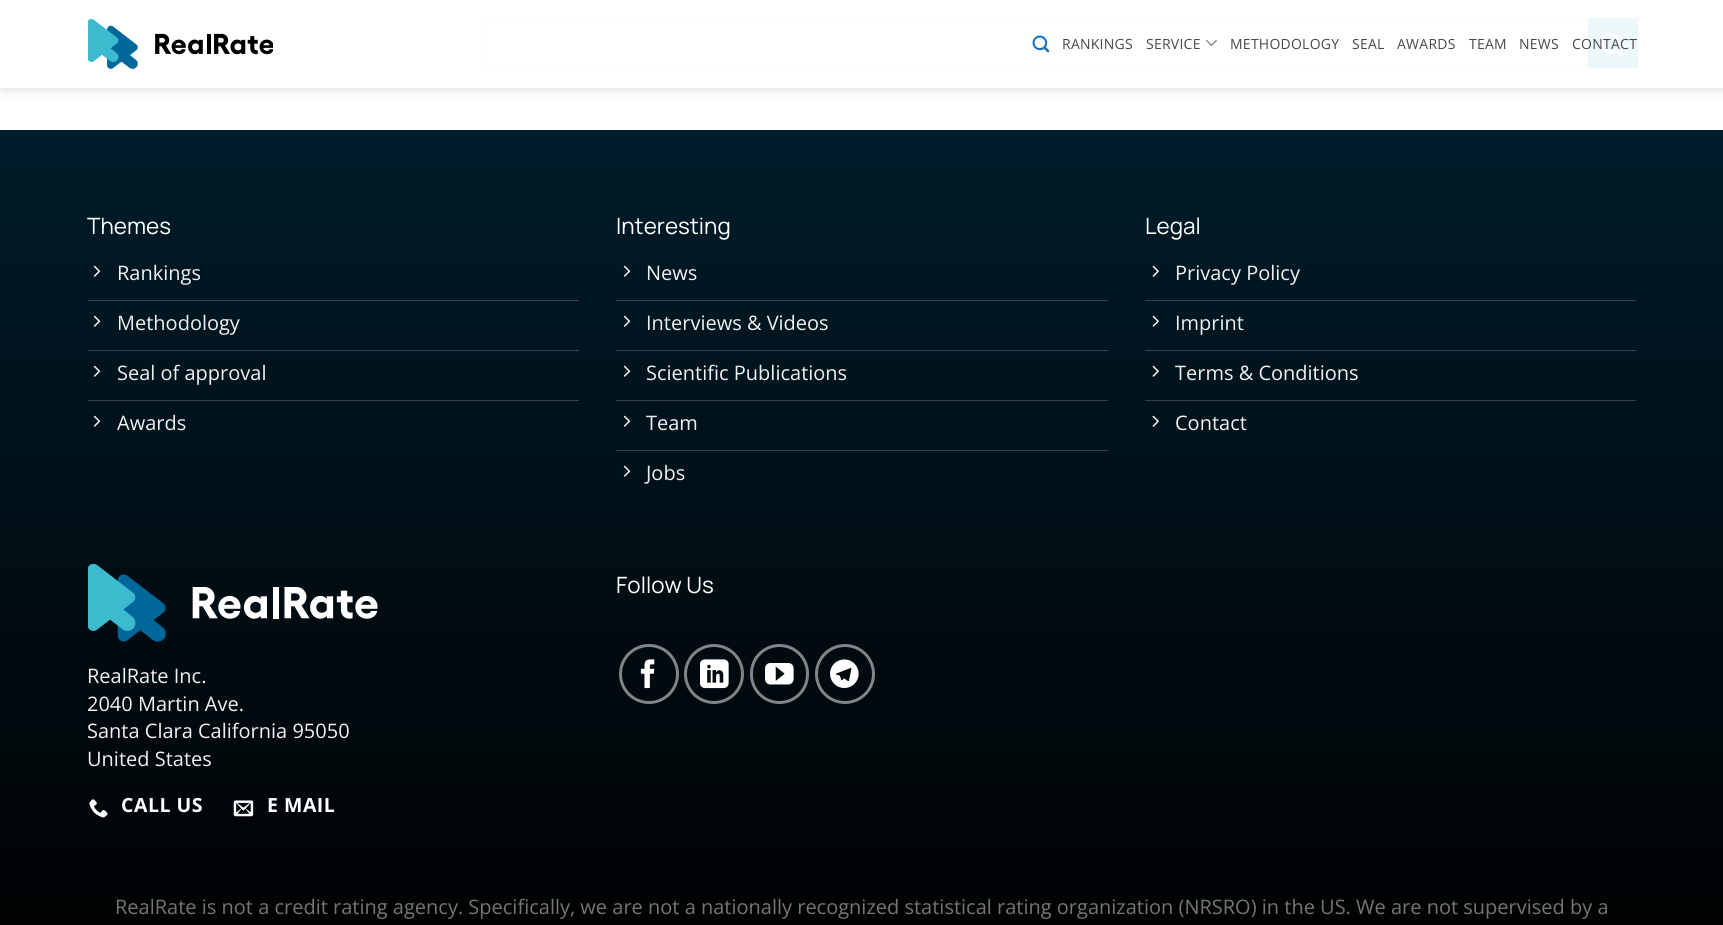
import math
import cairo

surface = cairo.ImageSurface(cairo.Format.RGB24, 1723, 925)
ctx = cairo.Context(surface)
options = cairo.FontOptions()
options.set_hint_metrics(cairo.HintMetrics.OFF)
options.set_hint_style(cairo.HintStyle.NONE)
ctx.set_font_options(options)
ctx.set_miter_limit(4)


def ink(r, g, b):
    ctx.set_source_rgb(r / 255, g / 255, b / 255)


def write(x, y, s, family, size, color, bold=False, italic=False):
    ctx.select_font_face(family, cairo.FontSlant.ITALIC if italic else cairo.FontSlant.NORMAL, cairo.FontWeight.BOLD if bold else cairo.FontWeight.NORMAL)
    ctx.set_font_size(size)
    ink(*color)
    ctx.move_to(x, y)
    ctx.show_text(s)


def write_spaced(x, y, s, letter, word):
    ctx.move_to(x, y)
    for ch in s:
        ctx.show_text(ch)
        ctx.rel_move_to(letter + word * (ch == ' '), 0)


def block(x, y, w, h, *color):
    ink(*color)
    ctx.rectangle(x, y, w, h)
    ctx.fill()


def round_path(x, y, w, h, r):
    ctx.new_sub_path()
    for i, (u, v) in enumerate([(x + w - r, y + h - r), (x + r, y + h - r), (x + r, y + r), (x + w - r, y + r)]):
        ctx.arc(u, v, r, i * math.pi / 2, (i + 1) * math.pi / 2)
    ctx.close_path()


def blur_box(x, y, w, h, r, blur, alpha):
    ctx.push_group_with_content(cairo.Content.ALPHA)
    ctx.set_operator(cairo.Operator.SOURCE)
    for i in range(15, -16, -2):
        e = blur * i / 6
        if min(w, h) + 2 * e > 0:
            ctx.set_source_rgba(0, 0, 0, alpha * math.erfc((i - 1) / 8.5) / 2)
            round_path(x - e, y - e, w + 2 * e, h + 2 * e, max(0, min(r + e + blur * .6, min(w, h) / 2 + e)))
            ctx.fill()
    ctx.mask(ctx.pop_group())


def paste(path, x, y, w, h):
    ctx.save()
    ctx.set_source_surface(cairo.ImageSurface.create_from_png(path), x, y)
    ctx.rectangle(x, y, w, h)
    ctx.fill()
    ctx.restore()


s1 = dict(family="Manrope ExtraLight", size=22.5, color=(255, 255, 255))
s2 = dict(family="Open Sans", size=20, color=(241, 241, 241))
s3 = dict(family="Open Sans", size=20, color=(116, 117, 118))

ink(255, 255, 255)
ctx.paint()
ctx.rectangle(484.5, 19.5, 1103, 46)
ink(221, 221, 221)
ctx.set_line_width(1)
ctx.stroke()
ink(61, 186, 205)
ctx.rectangle(1588.5, 18.5, 49, 49)
ctx.fill_preserve()
ink(58, 177, 195)
ctx.stroke()
paste("pic1.png", 1600, 33, 24, 24)
ctx.save()
ctx.set_fill_rule(cairo.FillRule.EVEN_ODD)
ctx.new_path()
ctx.move_to(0, 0)
ctx.line_to(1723, 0)
ctx.line_to(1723, 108)
ctx.line_to(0, 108)
ctx.close_path()
ctx.move_to(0, 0)
ctx.line_to(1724, 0)
ctx.line_to(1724, 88)
ctx.line_to(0, 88)
ctx.close_path()
ctx.clip()
ink(0, 0, 0)
blur_box(1, 1, 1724, 88, 0, 6, 0.15)
ctx.restore()
ctx.set_source_rgba(1, 1, 1, 0.9)
ctx.rectangle(0, 18, 1723, 70)
ctx.fill()
paste("pic2.png", 88, 19, 185, 50)
paste("pic3.png", 1032, 35, 18, 18)
ctx.select_font_face("Open Sans")
ctx.set_font_size(14)
ink(71, 71, 71)
write_spaced(1062, 49, "RANKINGS", 0.25, 0)
write_spaced(1146, 49, "SERVICE", 0.25, 0)
paste("pic4.png", 1205, 39, 12, 8)
write_spaced(1230, 49, "METHODOLOGY", 0.25, 0)
write_spaced(1352, 49, "SEAL", 0.25, 0)
write_spaced(1397, 49, "AWARDS", 0.25, 0)
write_spaced(1469, 49, "TEAM", 0.25, 0)
write_spaced(1519, 49, "NEWS", 0.25, 0)
write_spaced(1572, 49, "CONTACT", 0.25, 0)
gradient = cairo.LinearGradient(862, 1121, 862, 130)
gradient.add_color_stop_rgba(0, 0, 0, 0, 1)
gradient.add_color_stop_rgba(0.14, 0, 0, 0, 1)
gradient.add_color_stop_rgba(1, 0, 0.11, 0.165, 1)
ctx.set_source(gradient)
ctx.rectangle(0, 130, 1723, 795)
ctx.fill()
write(87, 234, "Themes", **s1)
block(88, 300, 491, 1, 51, 69, 78)
paste("pic5.png", 93, 265, 8, 12)
write(117, 280, "Rankings", **s2)
block(88, 350, 491, 1, 51, 68, 76)
paste("pic6.png", 93, 315, 8, 12)
write(117, 330, "Methodology", **s2)
block(88, 400, 491, 1, 51, 66, 74)
paste("pic7.png", 93, 365, 8, 12)
write(117, 380, "Seal of approval", **s2)
paste("pic8.png", 93, 415, 8, 12)
write(117, 430, "Awards", **s2)
write(616, 234, "Interesting", **s1)
block(616, 300, 492, 1, 51, 69, 78)
paste("pic5.png", 623, 265, 8, 12)
write(646, 280, "News", **s2)
block(616, 350, 492, 1, 51, 68, 76)
paste("pic6.png", 623, 315, 8, 12)
write(646, 330, "Interviews & Videos", **s2)
block(616, 400, 492, 1, 51, 66, 74)
paste("pic7.png", 623, 365, 8, 12)
write(646, 380, "Scientific Publications", **s2)
block(616, 450, 492, 1, 51, 65, 72)
paste("pic8.png", 623, 415, 8, 12)
write(646, 430, "Team", **s2)
paste("pic9.png", 623, 465, 8, 12)
write(646, 480, "Jobs", **s2)
write(1145, 234, "Legal", **s1)
block(1145, 300, 491, 1, 51, 69, 78)
paste("pic10.png", 1152, 265, 7, 12)
write(1175, 280, "Privacy Policy", **s2)
block(1145, 350, 491, 1, 51, 68, 76)
paste("pic11.png", 1152, 315, 7, 12)
write(1175, 330, "Imprint", **s2)
block(1145, 400, 491, 1, 51, 66, 74)
paste("pic12.png", 1152, 365, 7, 12)
write(1175, 380, "Terms & Conditions", **s2)
paste("pic13.png", 1152, 415, 7, 12)
write(1175, 430, "Contact", **s2)
write(616, 593, "Follow Us", **s1)
ctx.new_path()
ctx.arc(649, 674, 28.5, 0, 2 * math.pi)
ctx.set_source_rgba(1, 1, 1, 0.5)
ctx.set_line_width(3)
ctx.stroke()
paste("pic14.png", 640, 659, 15, 30)
ctx.arc(714, 674, 28.5, 0, 2 * math.pi)
ctx.stroke()
paste("pic15.png", 700, 659, 29, 30)
round_path(751.5, 645.5, 56, 57, 28)
ctx.stroke()
paste("pic16.png", 765, 663, 29, 22)
ctx.arc(845, 674, 28.5, 0, 2 * math.pi)
ctx.stroke()
paste("pic17.png", 830, 659, 29, 29)
paste("pic18.png", 88, 564, 290, 78)
write(87, 683, "RealRate Inc.", **s2)
write(87, 711, "2040 Martin Ave.", **s2)
write(87, 738, "Santa Clara California 95050", **s2)
write(87, 766, "United States", **s2)
paste("pic19.png", 89, 799, 19, 19)
ctx.select_font_face("Open Sans", cairo.FontSlant.NORMAL, cairo.FontWeight.BOLD)
ctx.set_font_size(19.5)
ink(255, 255, 255)
write_spaced(121, 812, "CALL US", 0.5, 0)
paste("pic20.png", 233, 800, 21, 17)
write_spaced(267, 812, "E MAIL", 0.5, 0)
write(115, 914, "RealRate is not a credit rating agency. Specifically, we are not a nationally recognized statistical rating organization (NRSRO) in the US. We are not supervised by a", **s3)
surface.write_to_png("screenshot.png")
